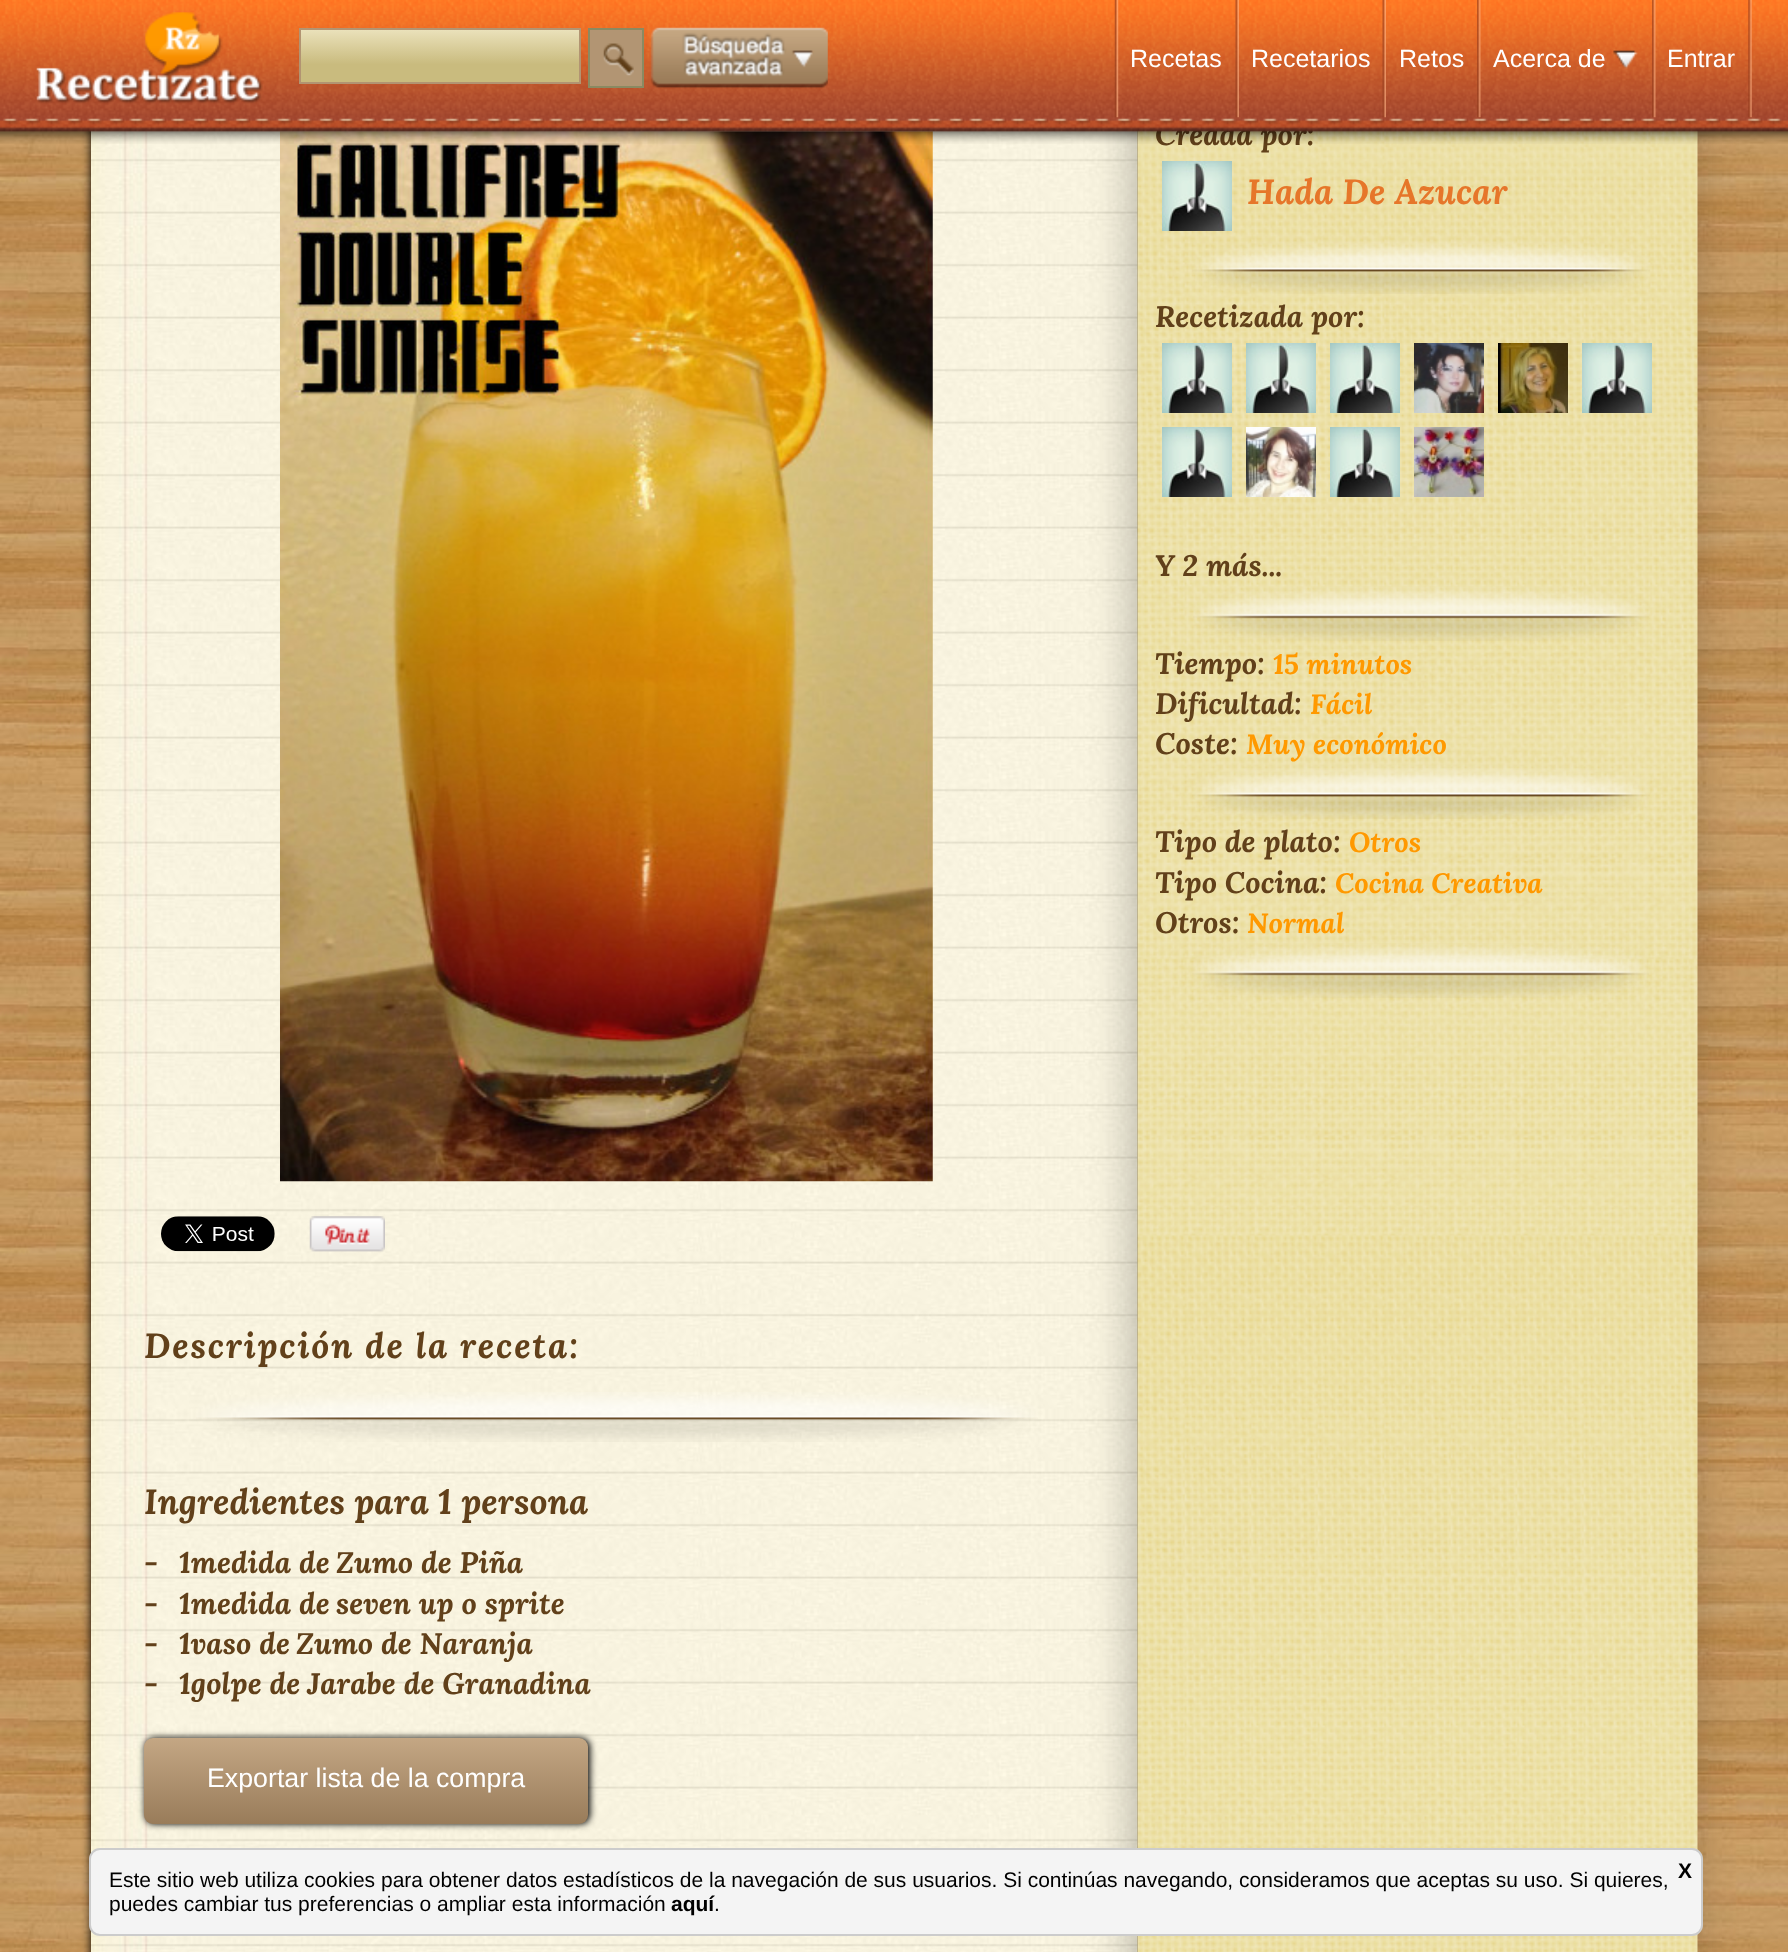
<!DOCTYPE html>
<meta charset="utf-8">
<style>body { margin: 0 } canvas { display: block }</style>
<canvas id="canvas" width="1788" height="1952"></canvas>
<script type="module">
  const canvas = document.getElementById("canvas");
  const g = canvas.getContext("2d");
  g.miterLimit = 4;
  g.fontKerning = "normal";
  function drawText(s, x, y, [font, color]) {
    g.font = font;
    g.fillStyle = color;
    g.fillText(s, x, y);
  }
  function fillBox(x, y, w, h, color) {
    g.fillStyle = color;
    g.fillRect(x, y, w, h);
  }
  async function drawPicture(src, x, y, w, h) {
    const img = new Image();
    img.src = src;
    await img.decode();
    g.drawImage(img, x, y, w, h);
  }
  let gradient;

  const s1 = ["italic bold 29.75px Lora", "#61401A"];
  const s2 = ["25px Liberation Sans", "#FFFFFF"];
  const s3 = ["italic bold 35px Lora", "#E6762A"];
  const s4 = ["italic bold 28px Lora", "#FF9900"];
  const s5 = ["italic bold 35px Lora", "#61401A"];
  const s6 = ["26.75px Liberation Sans", "#FFFFFF"];
  const s7 = ["21px Liberation Sans", "#000000"];
  const s8 = ["bold 21px Liberation Sans", "#000000"];

  fillBox(0, 0, 1788, 1952, "#FFFFFF");
  await drawPicture("pic1.png", 0, 130, 1788, 1822);
  g.fillStyle = "#000000";
  g.filter = "blur(5px)";
  g.beginPath();
  g.rect(91, -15, 1047, 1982);
  g.fill();
  g.filter = "none";
  await drawPicture("pic23.png", 91, 130, 1047, 1822);
  g.fillStyle = "rgba(50, 50, 50, 0.32)";
  g.filter = "blur(22px)";
  g.beginPath();
  g.rect(1131, -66, 560, 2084);
  g.fill();
  g.filter = "none";
  await drawPicture("pic13.png", 1137, 130, 561, 1822);
  drawText("Creada por:", 1155, 145, s1);
  await drawPicture("pic24.png", 280, 131, 653, 1051);
  await drawPicture("pic2.png", 0, 0, 1788, 144);
  await drawPicture("pic3.png", 36, 12, 227, 92);
  gradient = g.createLinearGradient(301, 82, 301, 30);
  gradient.addColorStop(0.34, "#C9BB7E");
  gradient.addColorStop(1, "#EAE1BA");
  g.fillStyle = gradient;
  g.fillRect(301, 30, 278, 52);
  g.strokeStyle = "#B29472";
  g.lineWidth = 2;
  g.strokeRect(300, 29, 280, 54);
  g.fillStyle = "#B29573";
  g.beginPath();
  g.rect(589, 29, 54, 58);
  g.fill();
  g.strokeStyle = "#8A8A62";
  g.stroke();
  await drawPicture("pic4.png", 603, 43, 31, 33);
  await drawPicture("pic5.png", 650, 27, 178, 62);
  await drawPicture("pic6.png", 1114, 0, 5, 118);
  drawText("Recetas", 1130, 67, s2);
  await drawPicture("pic7.png", 1235, 0, 4, 118);
  drawText("Recetarios", 1251, 67, s2);
  await drawPicture("pic8.png", 1382, 0, 4, 118);
  drawText("Retos", 1399, 67, s2);
  await drawPicture("pic9.png", 1477, 0, 4, 118);
  drawText("Acerca de", 1493, 67, s2);
  await drawPicture("pic10.png", 1613, 50, 25, 19);
  await drawPicture("pic11.png", 1652, 0, 4, 118);
  drawText("Entrar", 1667, 67, s2);
  await drawPicture("pic12.png", 1748, 0, 4, 118);
  await drawPicture("pic14.png", 1162, 161, 70, 70);
  drawText("Hada De Azucar", 1247, 204, s3);
  await drawPicture("pic15.png", 1192, 240, 458, 54);
  drawText("Recetizada por:", 1155, 327, s1);
  await drawPicture("pic14.png", 1162, 343, 70, 70);
  await drawPicture("pic14.png", 1246, 343, 70, 70);
  await drawPicture("pic14.png", 1330, 343, 70, 70);
  await drawPicture("pic16.png", 1414, 343, 70, 70);
  await drawPicture("pic17.png", 1498, 343, 70, 70);
  await drawPicture("pic14.png", 1582, 343, 70, 70);
  await drawPicture("pic14.png", 1162, 427, 70, 70);
  await drawPicture("pic18.png", 1246, 427, 70, 70);
  await drawPicture("pic14.png", 1330, 427, 70, 70);
  await drawPicture("pic19.png", 1414, 427, 70, 70);
  drawText("Y 2 más...", 1155, 576, s1);
  await drawPicture("pic20.png", 1193, 587, 456, 54);
  drawText("Tiempo:", 1155, 674, s1);
  drawText("15 minutos", 1273, 674, s4);
  drawText("Dificultad:", 1155, 714, s1);
  drawText("Fácil", 1310, 714, s4);
  drawText("Coste:", 1155, 754, s1);
  drawText("Muy económico", 1246, 754, s4);
  await drawPicture("pic21.png", 1192, 765, 458, 54);
  drawText("Tipo de plato:", 1155, 852, s1);
  drawText("Otros", 1349, 852, s4);
  drawText("Tipo Cocina:", 1155, 893, s1);
  drawText("Cocina Creativa", 1335, 893, s4);
  drawText("Otros:", 1155, 933, s1);
  drawText("Normal", 1247, 933, s4);
  await drawPicture("pic22.png", 1192, 944, 457, 54);
  await drawPicture("pic25.png", 161, 1216, 114, 36);
  await drawPicture("pic26.png", 309, 1216, 76, 36);
  g.letterSpacing = "1.75px";
  drawText("Descripción de la receta:", 144, 1358, s5);
  await drawPicture("pic27.png", 196, 1392, 842, 50);
  g.letterSpacing = "0px";
  drawText("Ingredientes para 1 persona", 144, 1514, s5);
  drawText("-", 144, 1573, s1);
  drawText("1medida de", 179, 1573, s1);
  drawText("Zumo de Piña", 336, 1573, s1);
  drawText("-", 144, 1614, s1);
  drawText("1medida de", 179, 1614, s1);
  drawText("seven up o sprite", 336, 1614, s1);
  drawText("-", 144, 1654, s1);
  drawText("1vaso de", 179, 1654, s1);
  drawText("Zumo de Naranja", 296, 1654, s1);
  drawText("-", 144, 1694, s1);
  drawText("1golpe de", 179, 1694, s1);
  drawText("Jarabe de Granadina", 307, 1694, s1);
  g.fillStyle = "#000000";
  g.filter = "blur(3.5px)";
  g.beginPath();
  g.roundRect(145, 1738, 445, 86, 9);
  g.fill();
  g.filter = "none";
  gradient = g.createLinearGradient(366, 1738, 366, 1824);
  gradient.addColorStop(0, "#C4A784");
  gradient.addColorStop(1, "#997C5A");
  g.fillStyle = gradient;
  g.beginPath();
  g.roundRect(144, 1738, 444, 86, 9);
  g.fill();
  drawText("Exportar lista de la compra", 207, 1787, s6);
  g.fillStyle = "#F4F4F4";
  g.beginPath();
  g.roundRect(90, 1849, 1612, 86, 10);
  g.fill();
  g.strokeStyle = "#CCCCCC";
  g.stroke();
  drawText("Este sitio web utiliza cookies para obtener datos estadísticos de la navegación de sus usuarios. Si continúas navegando, consideramos que aceptas su uso. Si quieres,", 109, 1887, s7);
  drawText("X", 1678, 1878, s8);
  drawText("puedes cambiar tus preferencias o ampliar esta información", 109, 1911, s7);
  drawText("aquí", 671, 1911, s8);
  drawText(".", 714, 1911, s7);
</script>
